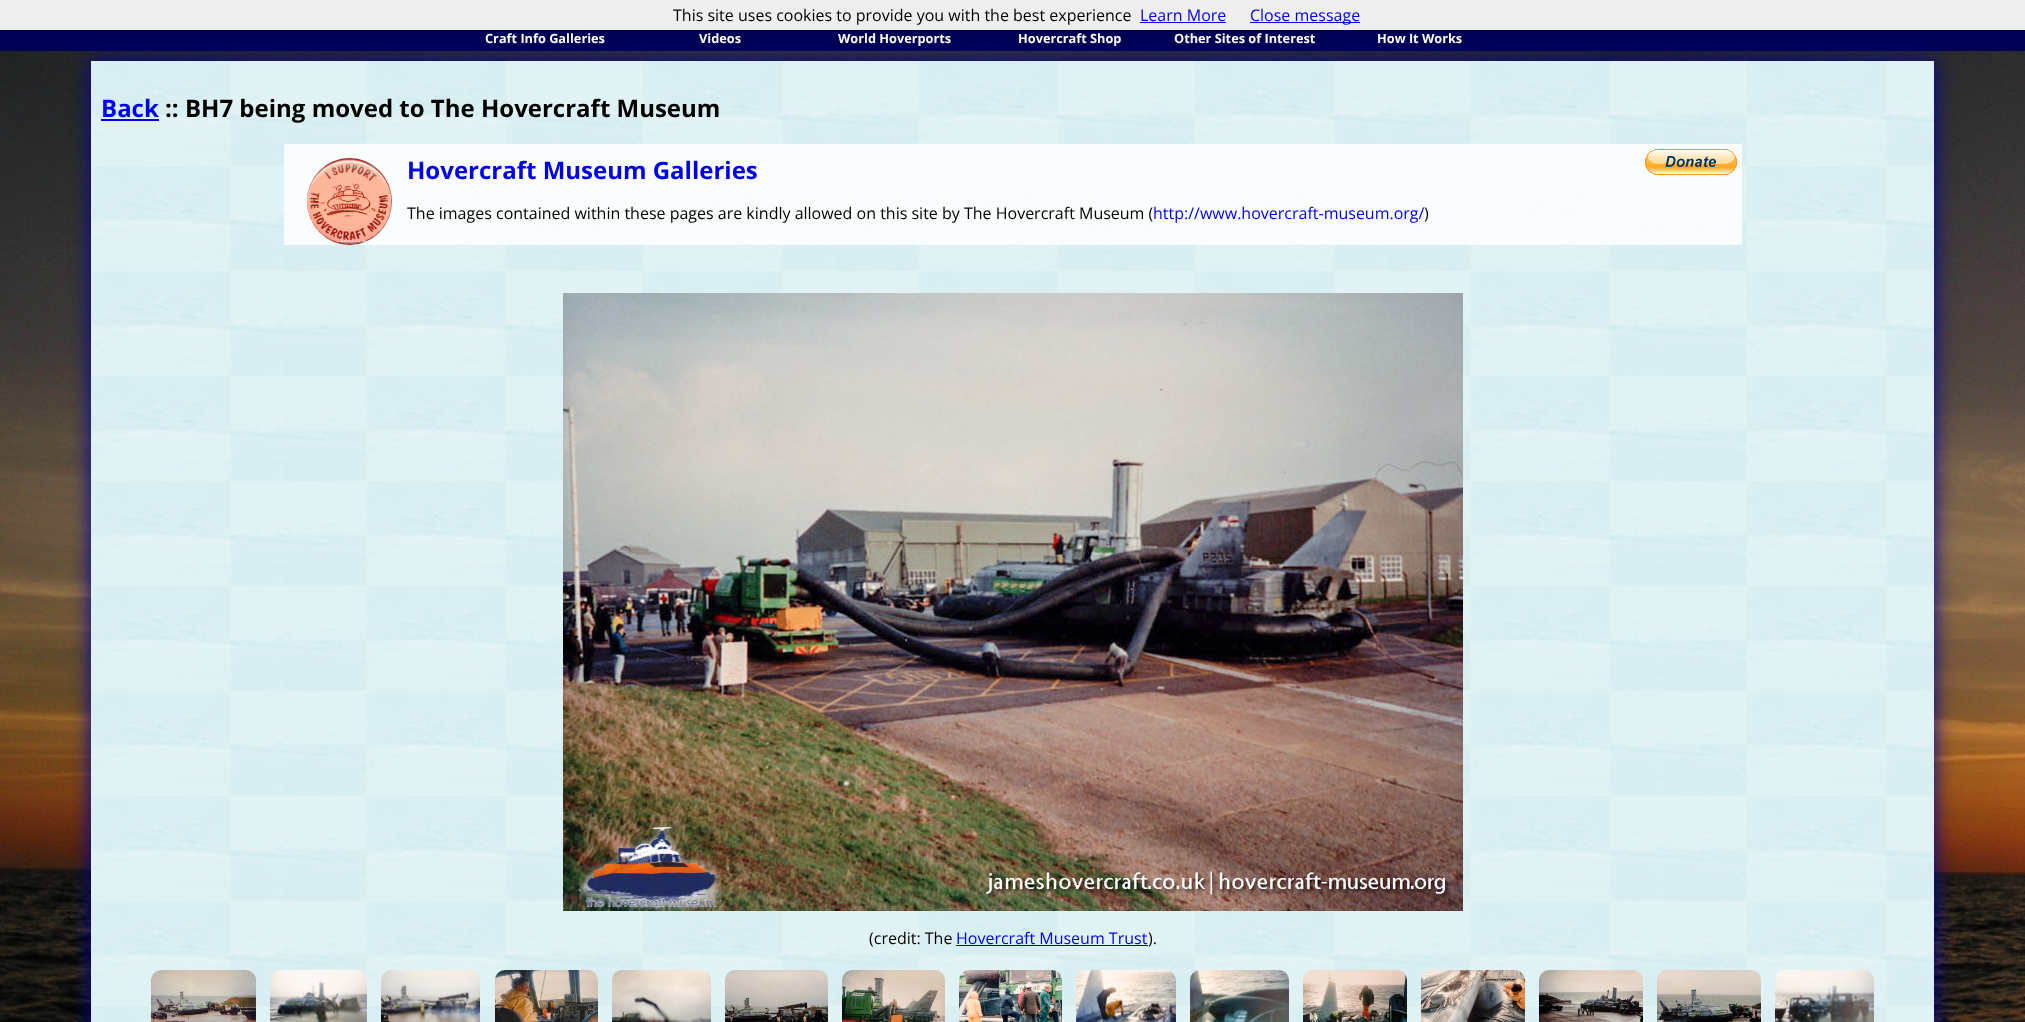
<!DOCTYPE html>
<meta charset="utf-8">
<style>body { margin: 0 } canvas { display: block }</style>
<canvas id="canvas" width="2025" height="1022"></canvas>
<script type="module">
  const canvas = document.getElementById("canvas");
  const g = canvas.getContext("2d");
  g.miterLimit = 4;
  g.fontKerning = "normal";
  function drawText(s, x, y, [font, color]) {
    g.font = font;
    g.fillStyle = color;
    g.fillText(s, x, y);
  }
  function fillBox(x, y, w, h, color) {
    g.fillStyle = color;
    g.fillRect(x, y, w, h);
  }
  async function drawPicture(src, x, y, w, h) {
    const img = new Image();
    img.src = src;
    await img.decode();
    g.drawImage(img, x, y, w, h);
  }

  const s1 = ["16px Open Sans", "#000000"];
  const s2 = ["16px Open Sans", "#0000EE"];
  const s3 = ["bold 12.75px Open Sans", "#FFFFFF"];
  const s4 = ["bold 24px Open Sans", "#0000EE"];
  const s5 = ["bold 24px Open Sans", "#000000"];

  fillBox(0, 0, 2025, 1022, "#FFFFFF");
  await drawPicture("pic1.png", 0, 51, 2025, 971);
  fillBox(0, 0, 2025, 30, "#EEEEEE");
  drawText("This site uses cookies to provide you with the best experience", 673, 21, s1);
  drawText("Learn More", 1140, 21, s2);
  fillBox(1140, 22, 86, 1, "#0000EE");
  fillBox(1250, 22, 110, 1, "#0000EE");
  drawText("Close message", 1250, 21, s2);
  fillBox(0, 30, 2025, 21, "#000055");
  drawText("Craft Info Galleries", 485, 43, s3);
  drawText("Videos", 699, 43, s3);
  drawText("World Hoverports", 838, 43, s3);
  drawText("Hovercraft Shop", 1018, 43, s3);
  drawText("Other Sites of Interest", 1174, 43, s3);
  drawText("How It Works", 1377, 43, s3);
  g.fillStyle = "#000099";
  g.filter = "blur(10px)";
  g.beginPath();
  g.rect(91, 61, 1843, 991);
  g.fill();
  g.filter = "none";
  await drawPicture("pic2.png", 91, 61, 1843, 961);
  drawText("Back", 101, 117, s4);
  fillBox(101, 119, 58, 2, "#0000EE");
  drawText(":: BH7 being moved to The Hovercraft Museum", 165, 117, s5);
  fillBox(284, 144, 1458, 101, "rgba(255, 255, 255, 0.8)");
  await drawPicture("pic3.png", 307, 158, 85, 87);
  drawText("Hovercraft Museum Galleries", 407, 179, s4);
  await drawPicture("pic4.png", 1645, 149, 92, 26);
  drawText("The images contained within these pages are kindly allowed on this site by The Hovercraft Museum (", 407, 219, s1);
  drawText("http://www.hovercraft-museum.org/", 1153, 219, s2);
  drawText(")", 1424, 219, s1);
  await drawPicture("pic5.png", 563, 293, 900, 618);
  drawText("(credit: The", 869, 944, s1);
  drawText("Hovercraft Museum Trust", 956, 944, s2);
  fillBox(956, 945, 192, 1, "#0000EE");
  drawText(").", 1148, 944, s1);
  await drawPicture("pic6.png", 151, 970, 105, 52);
  await drawPicture("pic7.png", 270, 970, 97, 52);
  await drawPicture("pic8.png", 381, 970, 99, 52);
  await drawPicture("pic9.png", 495, 970, 103, 52);
  await drawPicture("pic10.png", 612, 970, 99, 52);
  await drawPicture("pic11.png", 725, 970, 103, 52);
  await drawPicture("pic12.png", 842, 970, 103, 52);
  await drawPicture("pic13.png", 959, 970, 103, 52);
  await drawPicture("pic14.png", 1076, 970, 100, 52);
  await drawPicture("pic15.png", 1190, 970, 99, 52);
  await drawPicture("pic16.png", 1303, 970, 104, 52);
  await drawPicture("pic17.png", 1421, 970, 104, 52);
  await drawPicture("pic18.png", 1539, 970, 104, 52);
  await drawPicture("pic19.png", 1657, 970, 104, 52);
  await drawPicture("pic20.png", 1775, 970, 99, 52);
</script>
